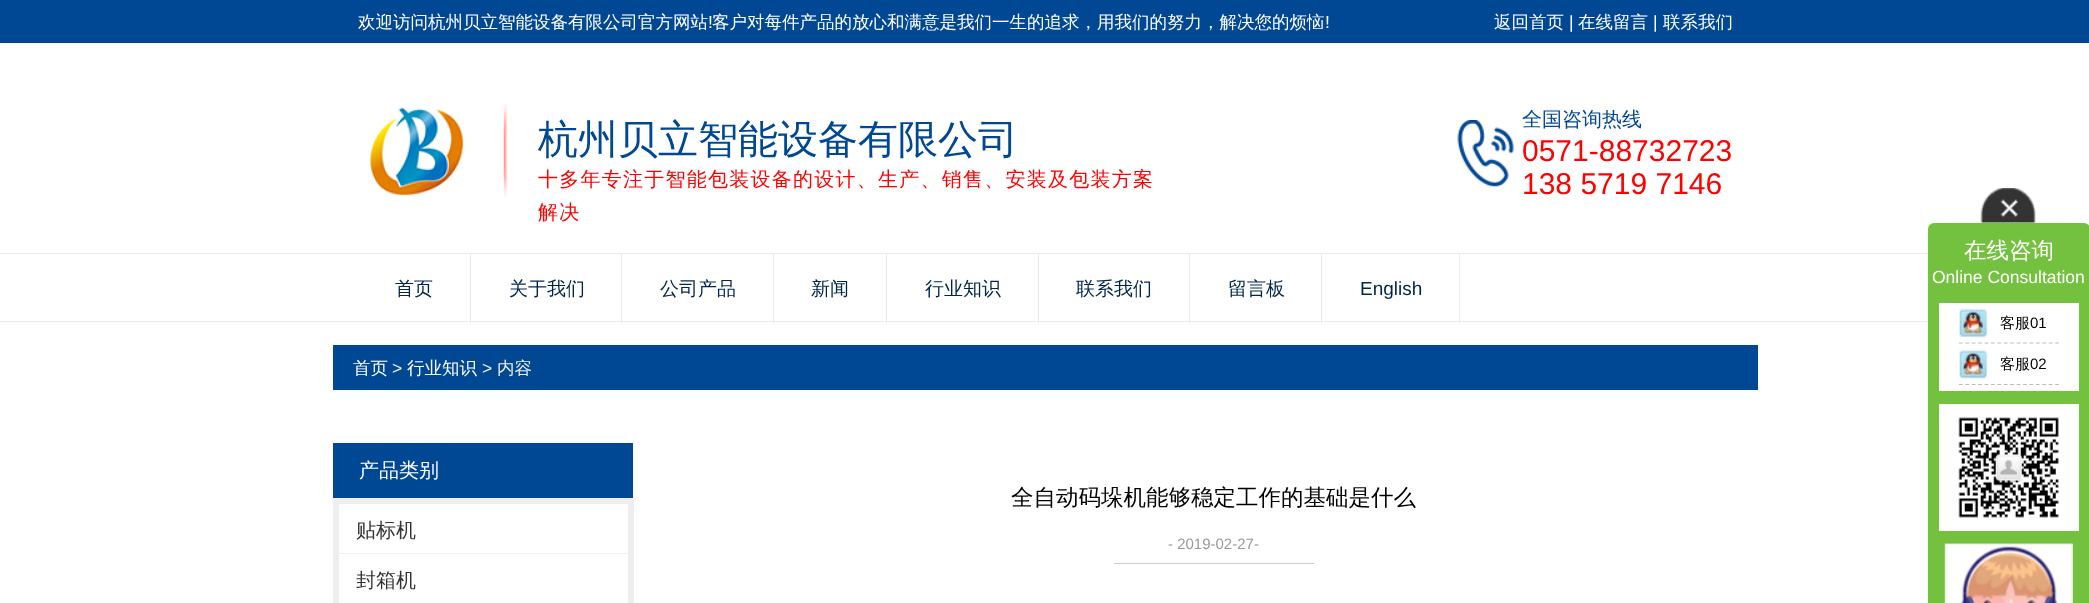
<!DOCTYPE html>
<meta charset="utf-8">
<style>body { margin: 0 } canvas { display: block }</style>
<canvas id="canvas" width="2089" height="603"></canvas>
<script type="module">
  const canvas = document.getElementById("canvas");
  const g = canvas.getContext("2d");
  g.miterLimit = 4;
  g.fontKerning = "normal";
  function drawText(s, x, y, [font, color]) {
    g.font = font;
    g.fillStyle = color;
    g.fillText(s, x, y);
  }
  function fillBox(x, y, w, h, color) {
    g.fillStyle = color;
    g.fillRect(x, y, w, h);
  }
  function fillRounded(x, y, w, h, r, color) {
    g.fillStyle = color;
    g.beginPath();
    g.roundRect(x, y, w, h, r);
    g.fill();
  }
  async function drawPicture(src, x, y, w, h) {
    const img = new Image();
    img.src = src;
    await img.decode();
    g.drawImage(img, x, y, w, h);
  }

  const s1 = ["500 17.5px WenQuanYi Zen Hei", "#FFFFFF"];
  const s2 = ["17.5px Liberation Sans", "#FFFFFF"];
  const s3 = ["500 40px WenQuanYi Zen Hei", "#004893"];
  const s4 = ["500 20px WenQuanYi Zen Hei", "#FF0000"];
  const s5 = ["500 20px WenQuanYi Zen Hei", "#004893"];
  const s6 = ["30px Liberation Sans", "#FF0000"];
  const s7 = ["500 19px WenQuanYi Zen Hei", "#00254C"];
  const s8 = ["19px Liberation Sans", "#00254C"];
  const s9 = ["500 22.5px WenQuanYi Zen Hei", "#FFFFFF"];
  const s10 = ["500 15px WenQuanYi Zen Hei", "#000000"];
  const s11 = ["15px Liberation Sans", "#000000"];
  const s12 = ["17.5px Liberation Sans", "#EEEEEE"];
  const s13 = ["500 17.5px WenQuanYi Zen Hei", "#EEEEEE"];
  const s14 = ["500 20px WenQuanYi Zen Hei", "#FFFFFF"];
  const s15 = ["500 20px WenQuanYi Zen Hei", "#333333"];
  const s16 = ["500 22.5px WenQuanYi Zen Hei", "#000000"];
  const s17 = ["15px Liberation Sans", "#999999"];

  fillBox(0, 0, 2089, 603, "#FFFFFF");
  fillBox(0, 0, 2089, 43, "#004893");
  drawText("欢迎访问杭州贝立智能设备有限公司官方网站", 358, 28, s1);
  drawText("!", 708, 28, s2);
  drawText("客户对每件产品的放心和满意是我们一生的追求，用我们的努力，解决您的烦恼", 712, 28, s1);
  drawText("!", 1325, 28, s2);
  drawText("返回首页", 1494, 28, s1);
  drawText("|", 1569, 28, s2);
  drawText("在线留言", 1578, 28, s1);
  drawText("|", 1653, 28, s2);
  drawText("联系我们", 1663, 28, s1);
  await drawPicture("pic1.png", 369, 107, 95, 89);
  await drawPicture("pic2.png", 503, 103, 5, 94);
  drawText("杭州贝立智能设备有限公司", 538, 153, s3);
  g.letterSpacing = "1.25px";
  drawText("十多年专注于智能包装设备的设计、生产、销售、安装及包装方案", 538, 186, s4);
  drawText("解决", 538, 219, s4);
  await drawPicture("pic3.png", 1457, 120, 57, 67);
  g.letterSpacing = "0px";
  drawText("全国咨询热线", 1522, 126, s5);
  drawText("0571-88732723", 1522, 161, s6);
  drawText("138 5719 7146", 1522, 194, s6);
  fillBox(0, 253, 1928, 1, "#EBEBEB");
  fillBox(0, 321, 1928, 1, "#EBEBEB");
  fillBox(470, 254, 1, 70, "#EBEBEB");
  drawText("首页", 395, 295, s7);
  fillBox(621, 254, 1, 70, "#EBEBEB");
  drawText("关于我们", 509, 295, s7);
  fillBox(773, 254, 1, 70, "#EBEBEB");
  drawText("公司产品", 660, 295, s7);
  fillBox(886, 254, 1, 70, "#EBEBEB");
  drawText("新闻", 811, 295, s7);
  fillBox(1038, 254, 1, 70, "#EBEBEB");
  drawText("行业知识", 925, 295, s7);
  fillBox(1189, 254, 1, 70, "#EBEBEB");
  drawText("联系我们", 1076, 295, s7);
  fillBox(1321, 254, 1, 70, "#EBEBEB");
  drawText("留言板", 1228, 295, s7);
  fillBox(1459, 254, 1, 70, "#EBEBEB");
  drawText("English", 1360, 295, s8);
  await drawPicture("pic4.png", 1980, 188, 56, 35);
  fillRounded(1928, 223, 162, 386, 6, "#74C13F");
  drawText("在线咨询", 1964, 258, s9);
  drawText("Online Consultation", 1932, 283, s2);
  fillBox(1939, 303, 140, 88, "#FFFFFF");
  g.beginPath();
  g.moveTo(1959, 343);
  g.lineTo(2059, 343);
  g.strokeStyle = "#BBBBBB";
  g.lineWidth = 1.2;
  g.setLineDash([3.75, 2.66]);
  g.stroke();
  await drawPicture("pic5.png", 1959, 308, 29, 30);
  drawText("客服", 2000, 328, s10);
  drawText("01", 2030, 328, s11);
  g.beginPath();
  g.moveTo(1959, 384.5);
  g.lineTo(2059, 384.5);
  g.stroke();
  await drawPicture("pic6.png", 1959, 349, 29, 31);
  drawText("客服", 2000, 369, s10);
  drawText("02", 2030, 369, s11);
  fillBox(1939, 404, 140, 127, "#FFFFFF");
  await drawPicture("pic7.png", 1958, 417, 101, 101);
  await drawPicture("pic8.png", 1944, 543, 129, 60);
  fillBox(333, 345, 1425, 45, "#004893");
  drawText("首页", 353, 374, s1);
  drawText(">", 392, 374, s12);
  drawText("行业知识", 407, 374, s1);
  drawText(">", 482, 374, s12);
  drawText("内容", 497, 374, s13);
  fillBox(333, 443, 300, 55, "#004893");
  drawText("产品类别", 359, 477, s14);
  g.strokeStyle = "#EEEEEE";
  g.lineWidth = 6;
  g.setLineDash([]);
  g.strokeRect(336, 501, 295, 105);
  fillBox(339, 553, 289, 1, "#EEEEEE");
  drawText("贴标机", 356, 537, s15);
  drawText("封箱机", 356, 587, s15);
  drawText("全自动码垛机能够稳定工作的基础是什么", 1011, 505, s16);
  fillBox(1114, 563, 200, 1, "#CCCCCC");
  drawText("- 2019-02-27-", 1168, 549, s17);
</script>
